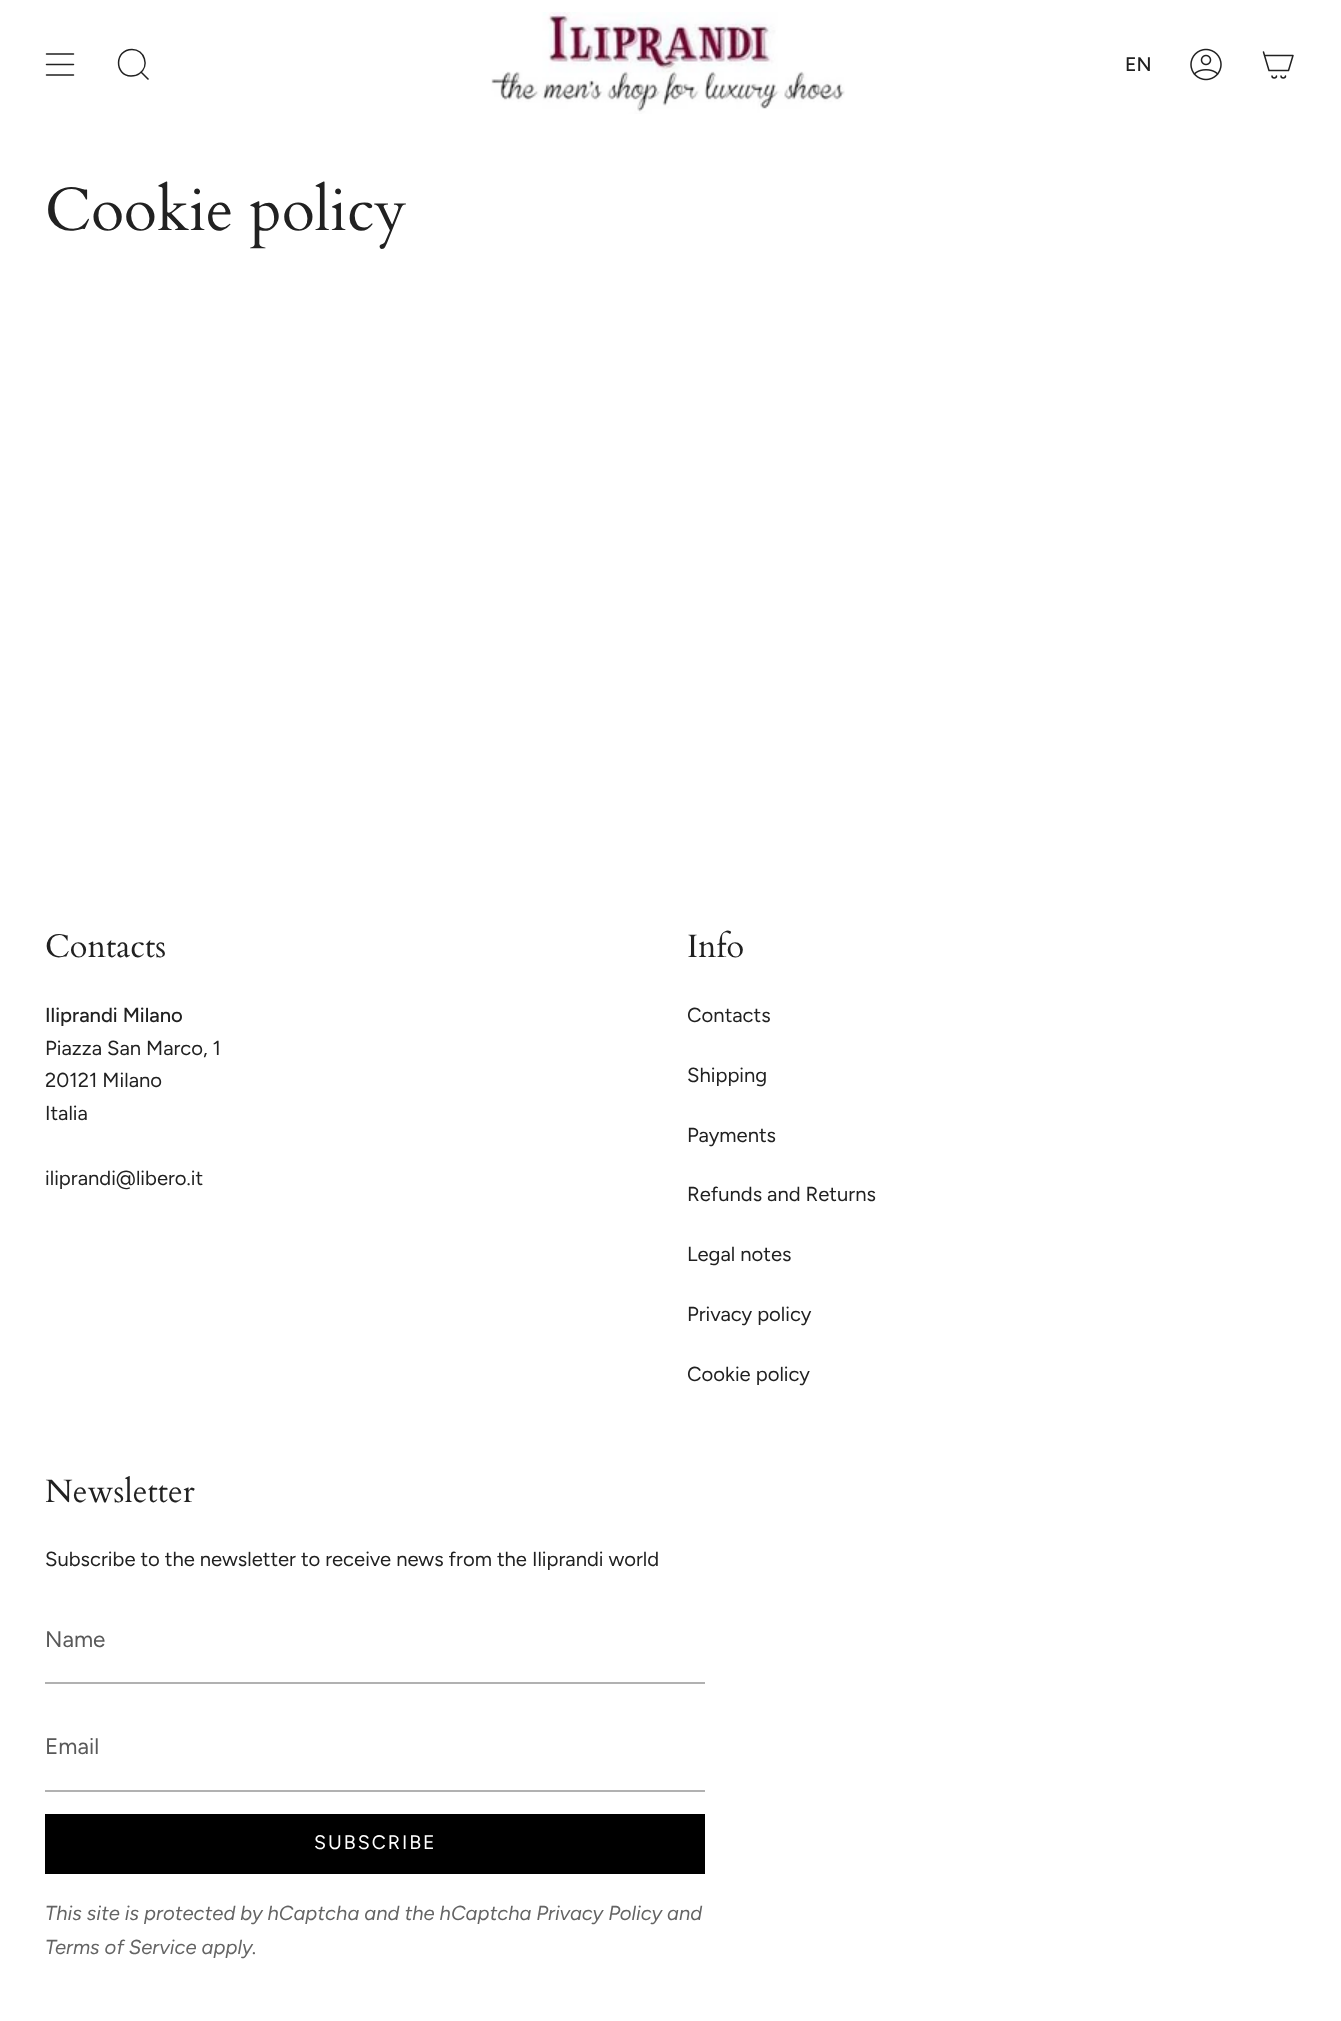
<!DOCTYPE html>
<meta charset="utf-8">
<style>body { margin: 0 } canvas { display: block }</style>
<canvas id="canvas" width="1341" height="2021"></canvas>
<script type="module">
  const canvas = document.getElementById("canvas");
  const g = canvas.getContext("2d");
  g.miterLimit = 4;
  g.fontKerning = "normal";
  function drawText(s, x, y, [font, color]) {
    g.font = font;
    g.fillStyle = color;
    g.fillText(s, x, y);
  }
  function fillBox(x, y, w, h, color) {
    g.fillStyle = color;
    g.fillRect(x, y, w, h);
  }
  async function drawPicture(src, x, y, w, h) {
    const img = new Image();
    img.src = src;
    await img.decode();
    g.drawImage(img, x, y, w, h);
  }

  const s1 = ["500 19.5px Figtree", "#212121"];
  const s2 = ["60.5px Cardo", "#212121"];
  const s3 = ["32.5px Cardo", "#212121"];
  const s4 = ["500 20.25px Figtree", "#212121"];
  const s5 = ["20.25px Figtree", "#212121"];
  const s6 = ["22.5px Figtree", "#595959"];
  const s7 = ["19.5px Figtree", "#FFFFFF"];
  const s8 = ["italic 20.25px Figtree", "#646464"];

  fillBox(0, 0, 1341, 2021, "#FFFFFF");
  g.beginPath();
  g.moveTo(46.5, 54);
  g.lineTo(73.5, 54);
  g.moveTo(46.5, 64.5);
  g.lineTo(73.5, 64.5);
  g.moveTo(46.5, 75);
  g.lineTo(73.5, 75);
  g.strokeStyle = "#212121";
  g.lineWidth = 1.5;
  g.lineCap = "round";
  g.lineJoin = "round";
  g.stroke();
  g.beginPath();
  g.moveTo(132, 49.5);
  g.bezierCurveTo(144.5, 49.5, 150, 66, 139.5, 73.5);
  g.bezierCurveTo(137, 75.5, 134, 76, 131, 76);
  g.bezierCurveTo(114, 75.5, 114.5, 49.5, 132, 49.5);
  g.closePath();
  g.moveTo(141, 72);
  g.lineTo(148.5, 79.5);
  g.lineCap = "butt";
  g.lineJoin = "miter";
  g.stroke();
  await drawPicture("pic1.png", 491, 12, 354, 102);
  drawText("EN", 1125, 71, s1);
  await drawPicture("pic2.png", 1190, 48, 32, 33);
  g.beginPath();
  g.moveTo(1264.5, 55.5);
  g.lineTo(1293, 55.5);
  g.lineTo(1288.5, 70.5);
  g.lineTo(1269, 70.5);
  g.closePath();
  g.moveTo(1264.5, 55.5);
  g.lineTo(1263.5, 52);
  g.moveTo(1276.5, 76);
  g.bezierCurveTo(1276.5, 78.5, 1272, 78.5, 1272, 76);
  g.moveTo(1285.5, 76);
  g.bezierCurveTo(1285.5, 78.5, 1281, 78.5, 1281, 76);
  g.lineCap = "round";
  g.lineJoin = "round";
  g.stroke();
  drawText("Cookie policy", 45, 230, s2);
  drawText("Contacts", 45, 957, s3);
  drawText("Iliprandi Milano", 45, 1022, s4);
  drawText("Piazza San Marco, 1", 45, 1055, s5);
  drawText("20121 Milano", 45, 1087, s5);
  drawText("Italia", 45, 1120, s5);
  drawText("iliprandi@libero.it", 45, 1185, s5);
  drawText("Info", 687, 957, s3);
  drawText("Contacts", 687, 1022, s5);
  drawText("Shipping", 687, 1082, s5);
  drawText("Payments", 687, 1142, s5);
  drawText("Refunds and Returns", 687, 1201, s5);
  drawText("Legal notes", 687, 1261, s5);
  drawText("Privacy policy", 687, 1321, s5);
  drawText("Cookie policy", 687, 1381, s5);
  drawText("Newsletter", 45, 1502, s3);
  drawText("Subscribe to the newsletter to receive news from the Iliprandi world", 45, 1566, s5);
  fillBox(45, 1682, 660, 2, "#B1B1B1");
  drawText("Name", 45, 1647, s6);
  fillBox(45, 1790, 660, 2, "#B1B1B1");
  drawText("Email", 45, 1754, s6);
  fillBox(45, 1814, 660, 60, "#000000");
  g.letterSpacing = "2px";
  drawText("SUBSCRIBE", 314, 1849, s7);
  g.letterSpacing = "0px";
  drawText("This site is protected by hCaptcha and the hCaptcha Privacy Policy and", 45, 1920, s8);
  drawText("Terms of Service apply.", 45, 1954, s8);
</script>
